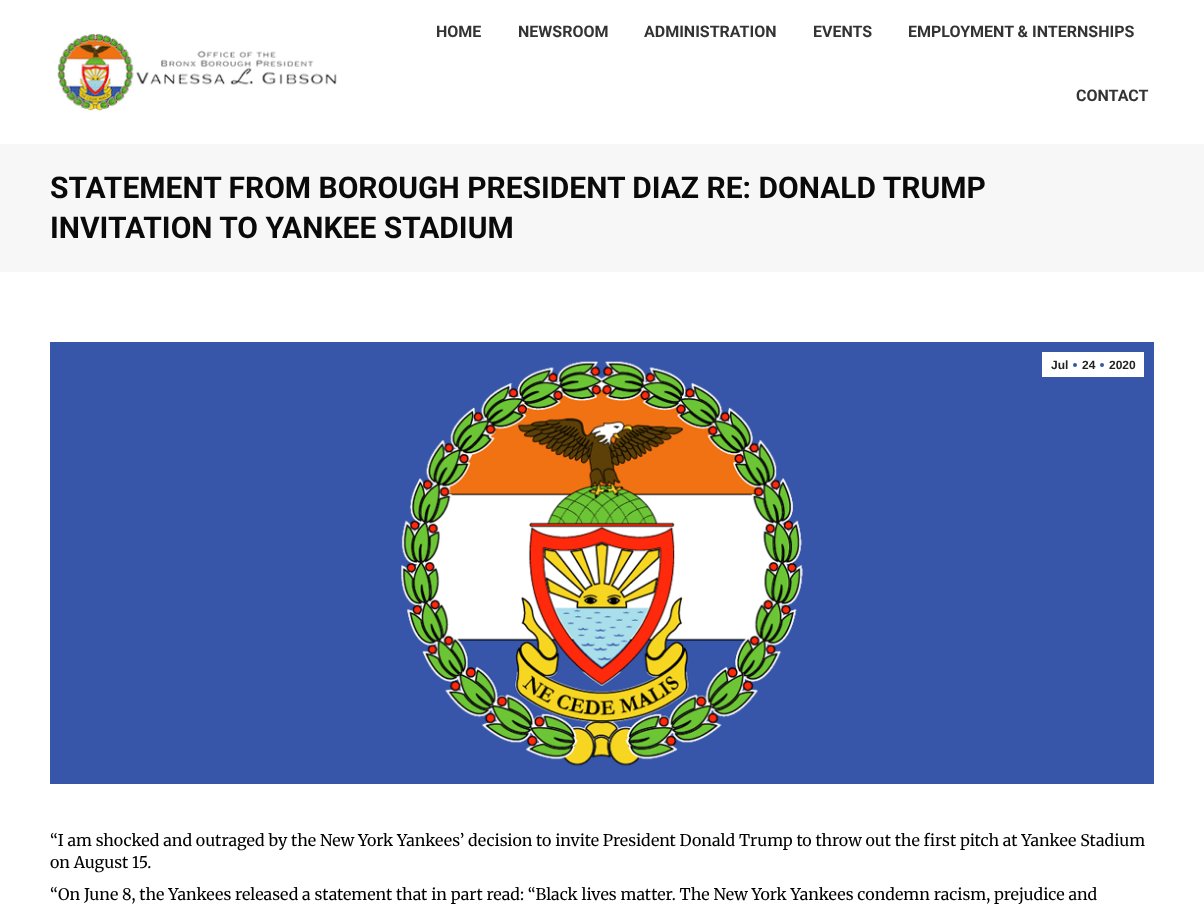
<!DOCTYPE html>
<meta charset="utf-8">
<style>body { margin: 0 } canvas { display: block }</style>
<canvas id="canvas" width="1204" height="904"></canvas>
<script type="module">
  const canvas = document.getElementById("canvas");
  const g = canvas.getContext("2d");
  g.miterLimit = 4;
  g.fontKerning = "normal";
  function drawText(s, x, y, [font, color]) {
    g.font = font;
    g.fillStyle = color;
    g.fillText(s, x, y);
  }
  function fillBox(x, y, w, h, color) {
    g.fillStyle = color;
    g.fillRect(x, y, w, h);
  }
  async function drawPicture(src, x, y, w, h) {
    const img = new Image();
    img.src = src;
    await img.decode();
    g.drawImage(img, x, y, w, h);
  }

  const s1 = ["bold 16px Roboto", "#333333"];
  const s2 = ["bold 30px Roboto", "#0A0A0A"];
  const s3 = ["bold 12px Liberation Sans", "#222222"];
  const s4 = ["16px Merriweather", "#000000"];

  fillBox(0, 0, 1204, 904, "#FFFFFF");
  await drawPicture("pic1.png", 57, 33, 280, 78);
  drawText("HOME", 436, 37, s1);
  drawText("NEWSROOM", 518, 37, s1);
  drawText("ADMINISTRATION", 644, 37, s1);
  drawText("EVENTS", 813, 37, s1);
  drawText("EMPLOYMENT & INTERNSHIPS", 908, 37, s1);
  drawText("CONTACT", 1076, 101, s1);
  fillBox(0, 144, 1204, 128, "#F7F7F7");
  drawText("STATEMENT FROM BOROUGH PRESIDENT DIAZ RE: DONALD TRUMP", 50, 198, s2);
  drawText("INVITATION TO YANKEE STADIUM", 50, 238, s2);
  await drawPicture("pic2.png", 50, 342, 1104, 442);
  fillBox(1042, 352, 102, 25, "#FFFFFF");
  drawText("Jul", 1051, 369, s3);
  g.fillStyle = "#3756A9";
  g.beginPath();
  g.arc(1075, 365, 2, 0, Math.PI * 2);
  g.fill();
  drawText("24", 1082, 369, s3);
  g.fillStyle = "#3756A9";
  g.beginPath();
  g.arc(1102, 365, 2, 0, Math.PI * 2);
  g.fill();
  drawText("2020", 1109, 369, s3);
  drawText("“I am shocked and outraged by the New York Yankees’ decision to invite President Donald Trump to throw out the first pitch at Yankee Stadium", 50, 846, s4);
  drawText("on August 15.", 50, 868, s4);
  drawText("“On June 8, the Yankees released a statement that in part read: “Black lives matter. The New York Yankees condemn racism, prejudice and", 50, 900, s4);
</script>
